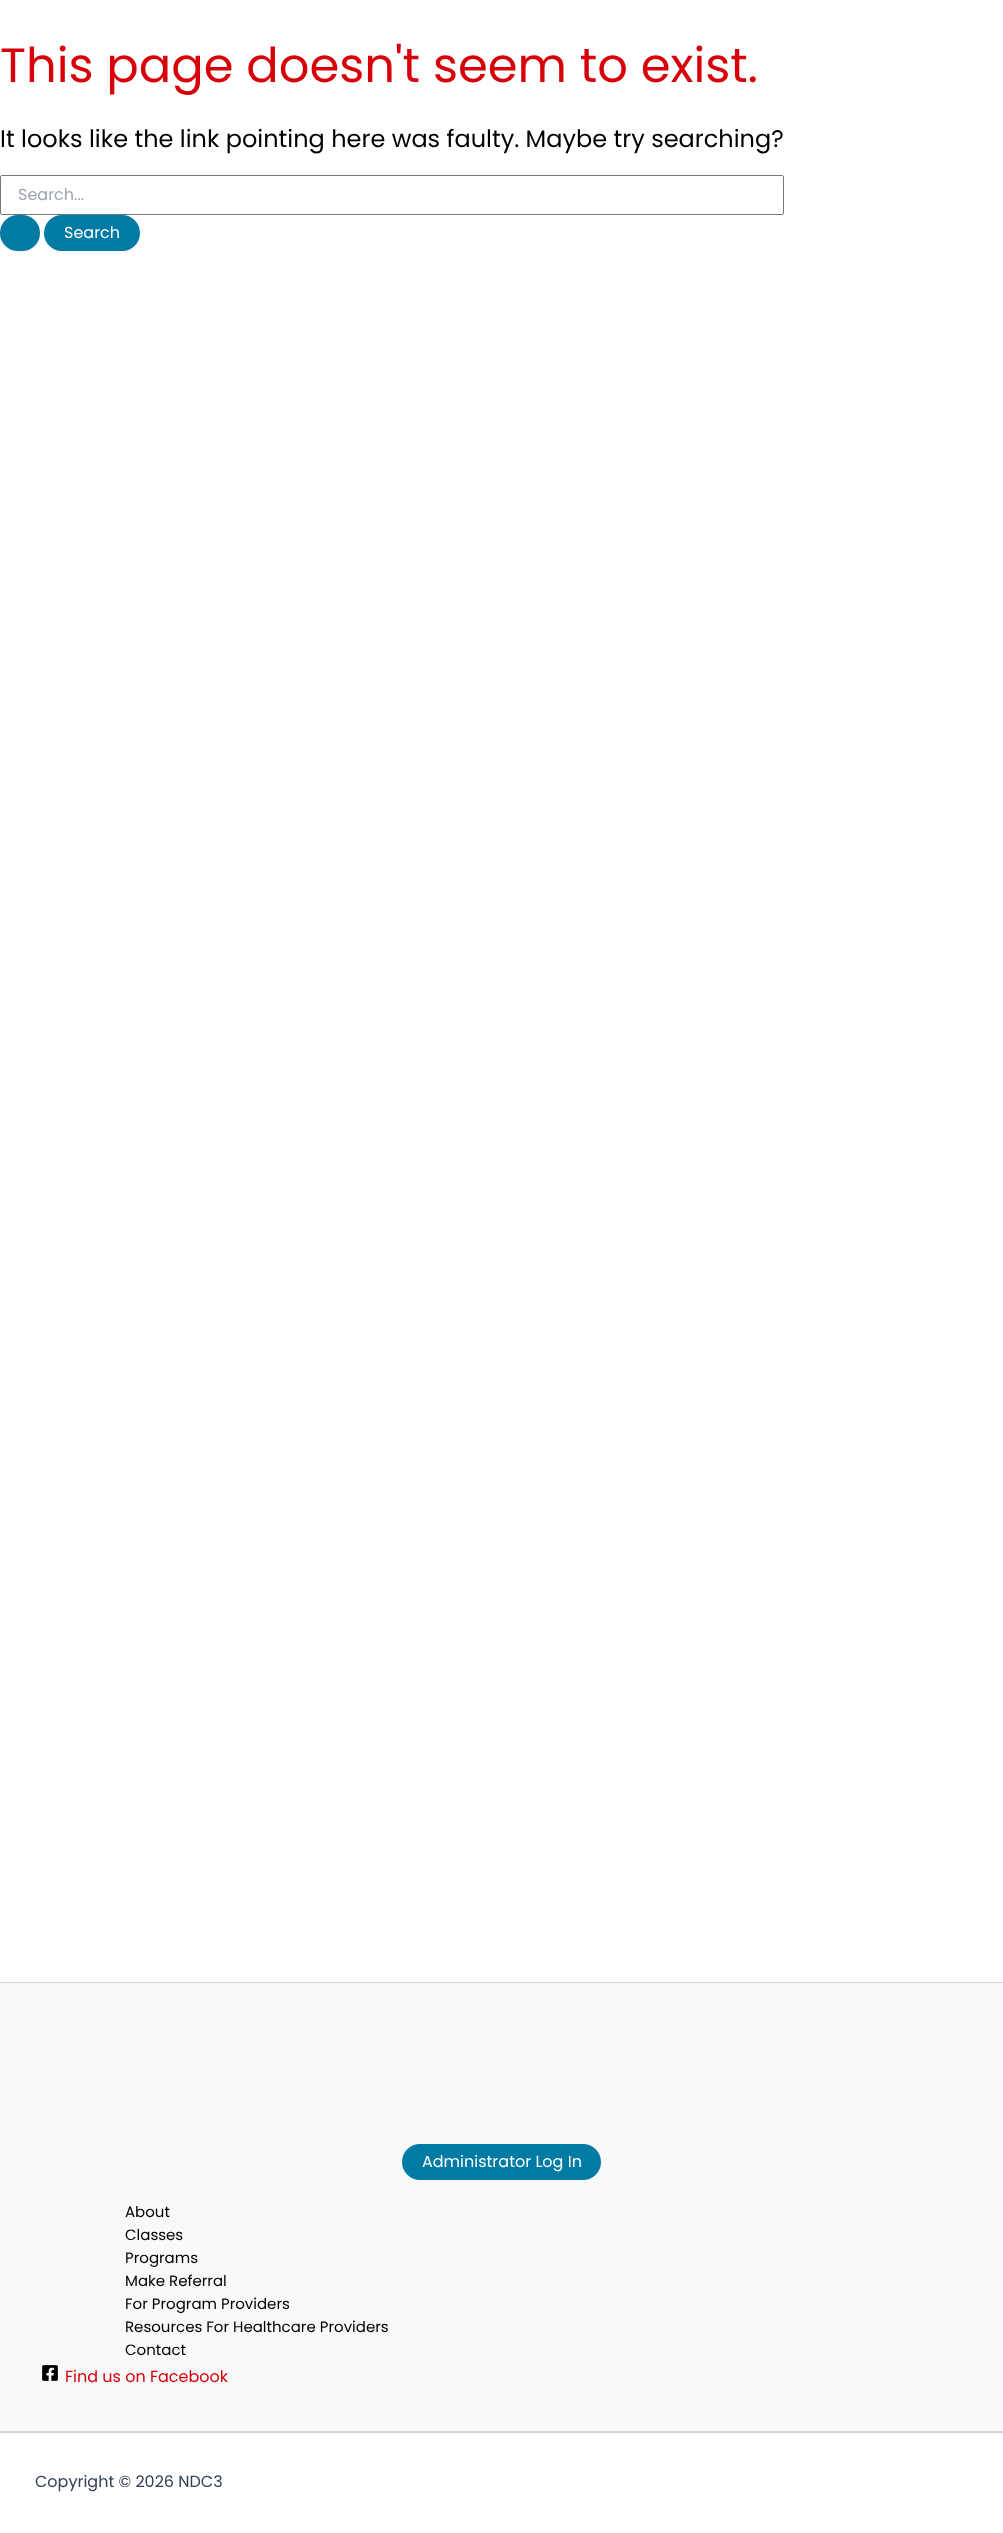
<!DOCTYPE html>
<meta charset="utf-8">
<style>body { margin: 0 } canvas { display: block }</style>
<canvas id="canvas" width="1003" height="2533"></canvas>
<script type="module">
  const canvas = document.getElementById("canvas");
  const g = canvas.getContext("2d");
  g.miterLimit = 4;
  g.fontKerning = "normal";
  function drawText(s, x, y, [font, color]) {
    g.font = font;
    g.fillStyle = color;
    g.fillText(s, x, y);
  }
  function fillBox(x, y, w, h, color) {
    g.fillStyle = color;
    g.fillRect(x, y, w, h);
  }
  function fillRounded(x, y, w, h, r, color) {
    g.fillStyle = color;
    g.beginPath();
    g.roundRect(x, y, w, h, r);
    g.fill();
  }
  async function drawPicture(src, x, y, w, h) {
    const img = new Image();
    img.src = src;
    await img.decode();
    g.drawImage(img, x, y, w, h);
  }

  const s1 = ["48px Poppins", "#D70009"];
  const s2 = ["24px Poppins", "#000000"];
  const s3 = ["16px Poppins", "#9CA3AF"];
  const s4 = ["16px Poppins", "#FFFFFF"];
  const s5 = ["15px Poppins", "#000000"];
  const s6 = ["16px Poppins", "#D70009"];
  const s7 = ["16px Poppins", "#334155"];

  fillBox(0, 0, 1003, 2533, "#FFFFFF");
  drawText("This page doesn't seem to exist.", 0, 82, s1);
  drawText("It looks like the link pointing here was faulty. Maybe try searching?", 0, 147, s2);
  g.beginPath();
  g.roundRect(0.5, 175.5, 783, 39, 1.5);
  g.strokeStyle = "#767676";
  g.stroke();
  drawText("Search...", 18, 200, s3);
  g.fillStyle = "rgba(0, 0, 0, 0.05)";
  g.filter = "blur(1px)";
  g.beginPath();
  g.roundRect(0, 216, 40, 36, 18);
  g.fill();
  g.filter = "none";
  fillRounded(0, 215, 40, 36, 18, "#017BA4");
  g.fillStyle = "rgba(0, 0, 0, 0.05)";
  g.filter = "blur(1px)";
  g.beginPath();
  g.roundRect(44, 216, 96, 36, 18);
  g.fill();
  g.filter = "none";
  fillRounded(44, 215, 96, 36, 18, "#017BA4");
  drawText("Search", 64, 238, s4);
  fillBox(0, 1983, 1003, 448, "#F9F9F9");
  fillBox(0, 1982, 1003, 1, "#D1D5DB");
  fillRounded(402, 2144, 199, 36, 18, "#017BA4");
  drawText("Administrator Log In", 422, 2167, s4);
  drawText("About", 125, 2217, s5);
  drawText("Classes", 125, 2240, s5);
  drawText("Programs", 125, 2263, s5);
  drawText("Make Referral", 125, 2286, s5);
  drawText("For Program Providers", 125, 2309, s5);
  drawText("Resources For Healthcare Providers", 125, 2332, s5);
  drawText("Contact", 125, 2355, s5);
  await drawPicture("pic1.png", 42, 2365, 16, 16);
  drawText("Find us on Facebook", 65, 2382, s6);
  fillBox(0, 2431, 1003, 2, "#D1D5DB");
  drawText("Copyright © 2026 NDC3", 35, 2487, s7);
</script>
